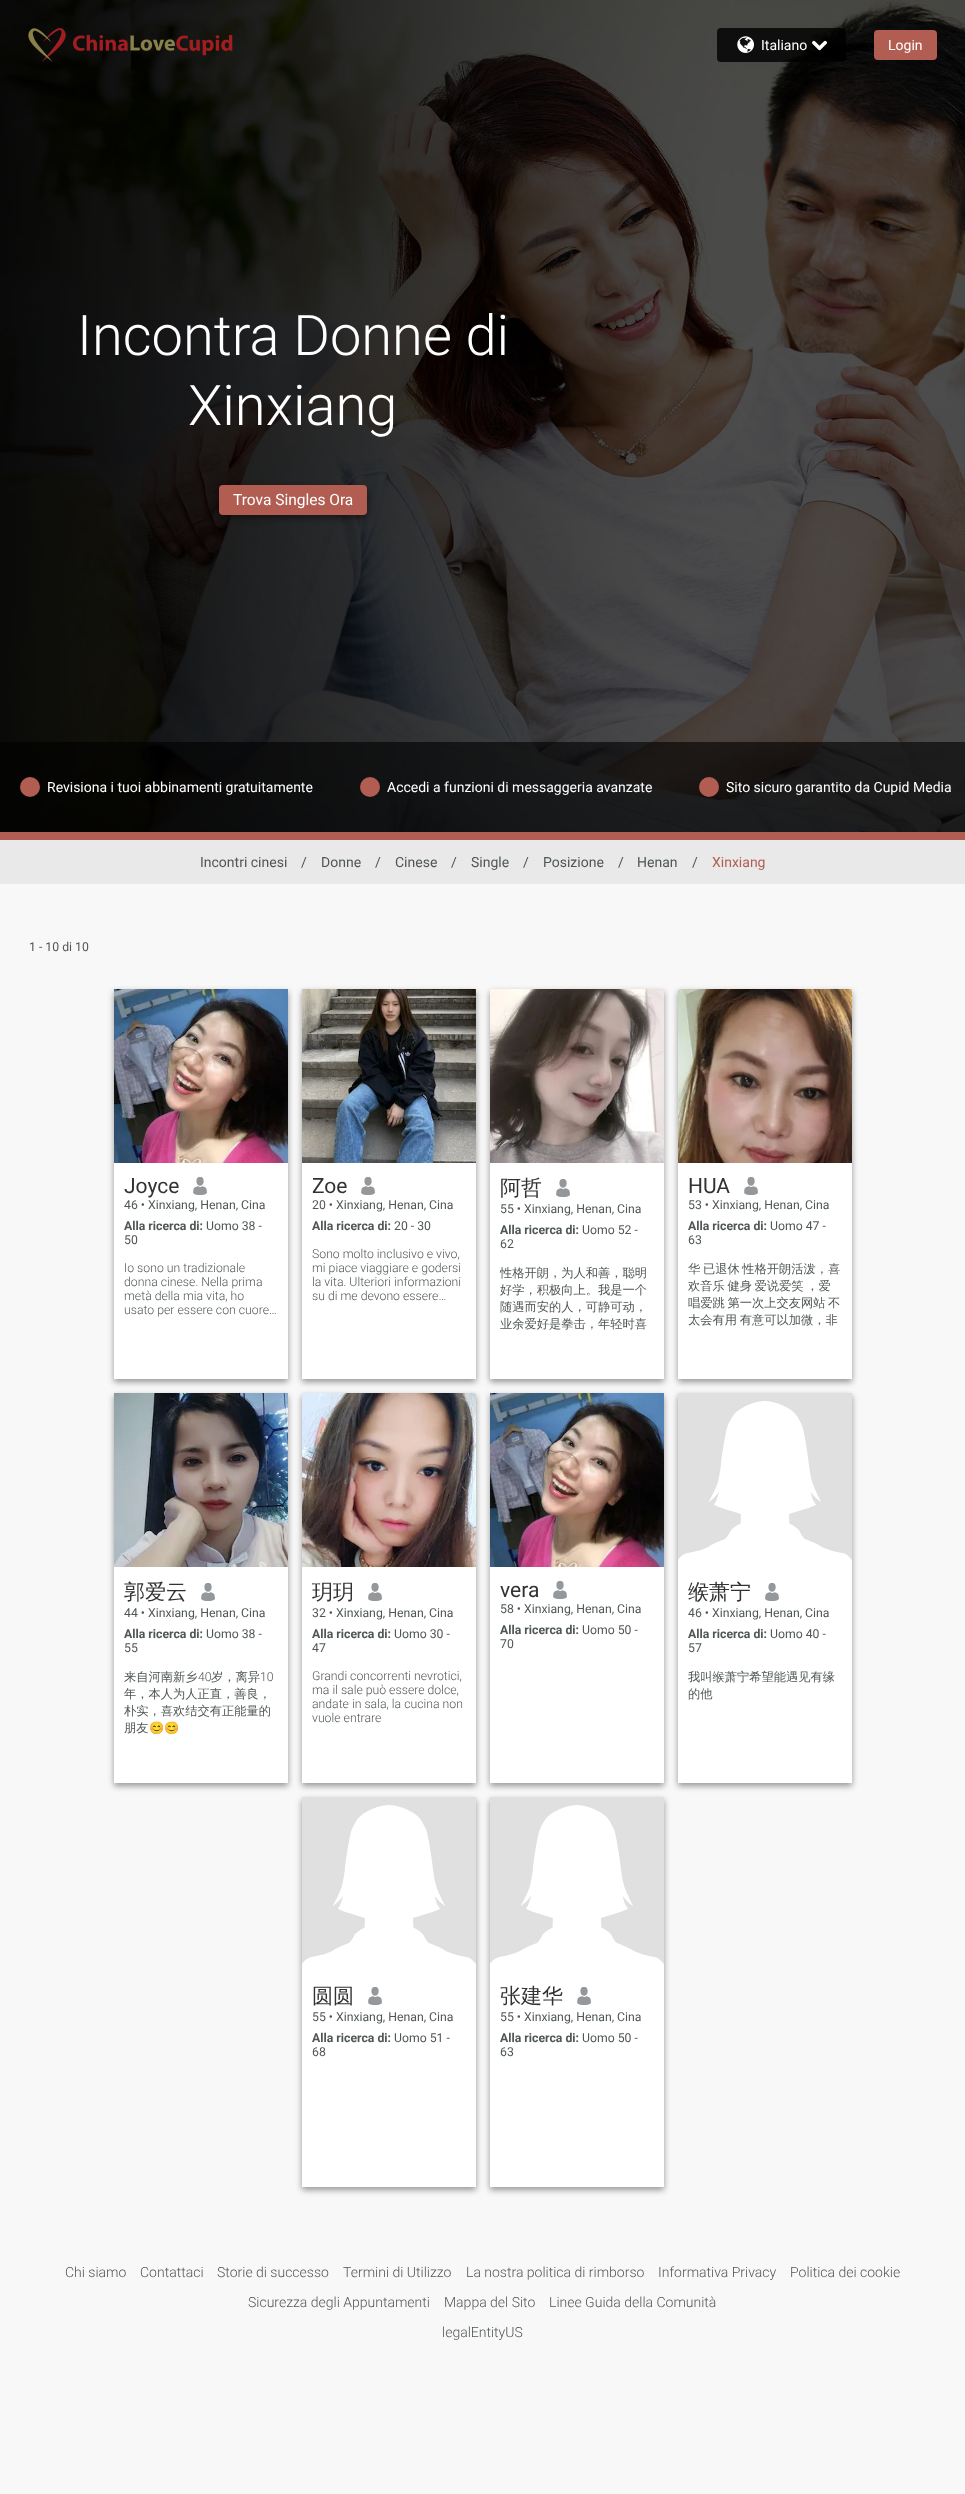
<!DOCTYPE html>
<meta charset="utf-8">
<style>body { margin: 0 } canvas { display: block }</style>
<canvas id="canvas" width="965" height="2494"></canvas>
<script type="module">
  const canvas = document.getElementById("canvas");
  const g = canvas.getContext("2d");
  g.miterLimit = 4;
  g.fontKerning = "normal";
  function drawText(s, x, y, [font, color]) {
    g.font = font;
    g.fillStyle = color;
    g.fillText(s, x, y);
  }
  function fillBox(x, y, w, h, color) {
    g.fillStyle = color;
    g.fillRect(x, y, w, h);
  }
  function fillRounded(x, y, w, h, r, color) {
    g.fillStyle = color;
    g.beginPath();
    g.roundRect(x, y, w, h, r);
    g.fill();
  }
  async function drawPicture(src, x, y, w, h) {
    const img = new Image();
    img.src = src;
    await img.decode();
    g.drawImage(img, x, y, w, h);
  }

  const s1 = ["14px Roboto", "#FFFFFF"];
  const s2 = ["300 56px Roboto", "#FFFFFF"];
  const s3 = ["15.5px Roboto", "#FFFFFF"];
  const s4 = ["14px Roboto", "#505656"];
  const s5 = ["14px Roboto", "#B15D51"];
  const s6 = ["12.25px Roboto", "#505656"];
  const s7 = ["21px Roboto", "#323232"];
  const s8 = ["bold 12.25px Roboto", "#505656"];
  const s9 = ["300 12.25px Roboto", "#505656"];
  const s10 = ["500 21px WenQuanYi Zen Hei", "#323232"];
  const s11 = ["500 12.25px WenQuanYi Zen Hei", "#505656"];
  const s12 = ["12.25px Noto Color Emoji", "#505656"];
  const s13 = ["300 14px Roboto", "#505656"];

  fillBox(0, 0, 965, 2494, "#F8F8F8");
  await drawPicture("pic5.png", 0, 0, 965, 832);
  await drawPicture("pic1.png", 28, 28, 38, 34);
  await drawPicture("pic2.png", 73, 34, 160, 22);
  fillRounded(717, 28, 129, 34, 4, "rgba(0, 0, 0, 0.8)");
  await drawPicture("pic3.png", 737, 36, 17, 17);
  drawText("Italiano", 761, 50, s1);
  await drawPicture("pic4.png", 812, 40, 15, 11);
  fillRounded(874, 30, 63, 30, 4, "#B15D51");
  drawText("Login", 888, 50, s1);
  drawText("Incontra Donne di", 77, 355, s2);
  drawText("Xinxiang", 188, 425, s2);
  g.fillStyle = "rgba(0, 0, 0, 0.4)";
  g.filter = "blur(3px)";
  g.beginPath();
  g.roundRect(219, 488, 148, 30, 4);
  g.fill();
  g.filter = "none";
  fillRounded(219, 485, 148, 30, 4, "#B15D51");
  drawText("Trova Singles Ora", 233, 505, s3);
  fillBox(0, 742, 965, 90, "rgba(0, 0, 0, 0.6)");
  g.fillStyle = "#B15D51";
  g.beginPath();
  g.arc(30, 787, 10, 0, Math.PI * 2);
  g.fill();
  drawText("Revisiona i tuoi abbinamenti gratuitamente", 47, 792, s1);
  g.fillStyle = "#B15D51";
  g.beginPath();
  g.arc(370, 787, 10, 0, Math.PI * 2);
  g.fill();
  drawText("Accedi a funzioni di messaggeria avanzate", 387, 792, s1);
  g.fillStyle = "#B15D51";
  g.beginPath();
  g.arc(709, 787, 10, 0, Math.PI * 2);
  g.fill();
  drawText("Sito sicuro garantito da Cupid Media", 726, 792, s1);
  fillBox(0, 832, 965, 8, "#B15D51");
  fillBox(0, 840, 965, 44, "#E9E9E9");
  drawText("Incontri cinesi", 200, 867, s4);
  drawText("/", 301, 867, s4);
  drawText("Donne", 321, 867, s4);
  drawText("/", 375, 867, s4);
  drawText("Cinese", 395, 867, s4);
  drawText("/", 451, 867, s4);
  drawText("Single", 471, 867, s4);
  drawText("/", 523, 867, s4);
  drawText("Posizione", 543, 867, s4);
  drawText("/", 618, 867, s4);
  drawText("Henan", 637, 867, s4);
  drawText("/", 692, 867, s4);
  drawText("Xinxiang", 712, 867, s5);
  drawText("1 - 10 di 10", 29, 951, s6);
  g.fillStyle = "rgba(0, 0, 0, 0.4)";
  g.filter = "blur(3px)";
  g.beginPath();
  g.rect(114, 992, 174, 390);
  g.fill();
  g.filter = "none";
  fillBox(114, 1163, 174, 216, "#FFFFFF");
  await drawPicture("pic6.png", 114, 989, 174, 174);
  drawText("Joyce", 124, 1193, s7);
  await drawPicture("pic7.png", 193, 1177, 14, 18);
  drawText("46 • Xinxiang, Henan, Cina", 124, 1209, s6);
  drawText("Alla ricerca di:", 124, 1230, s8);
  drawText("Uomo 38 -", 206, 1230, s6);
  drawText("50", 124, 1244, s6);
  drawText("Io sono un tradizionale", 124, 1272, s9);
  drawText("donna cinese. Nella prima", 124, 1286, s9);
  drawText("metà della mia vita, ho", 124, 1300, s9);
  drawText("usato per essere con cuore…", 124, 1314, s9);
  g.fillStyle = "rgba(0, 0, 0, 0.4)";
  g.filter = "blur(3px)";
  g.beginPath();
  g.rect(302, 992, 174, 390);
  g.fill();
  g.filter = "none";
  fillBox(302, 1163, 174, 216, "#FFFFFF");
  await drawPicture("pic8.png", 302, 989, 174, 174);
  drawText("Zoe", 312, 1193, s7);
  await drawPicture("pic7.png", 361, 1177, 14, 18);
  drawText("20 • Xinxiang, Henan, Cina", 312, 1209, s6);
  drawText("Alla ricerca di:", 312, 1230, s8);
  drawText("20 - 30", 394, 1230, s6);
  drawText("Sono molto inclusivo e vivo,", 312, 1258, s9);
  drawText("mi piace viaggiare e godersi", 312, 1272, s9);
  drawText("la vita. Ulteriori informazioni", 312, 1286, s9);
  drawText("su di me devono essere…", 312, 1300, s9);
  g.fillStyle = "rgba(0, 0, 0, 0.4)";
  g.filter = "blur(3px)";
  g.beginPath();
  g.rect(490, 992, 174, 390);
  g.fill();
  g.filter = "none";
  fillBox(490, 1163, 174, 216, "#FFFFFF");
  await drawPicture("pic9.png", 490, 989, 174, 174);
  drawText("阿哲", 500, 1195, s10);
  await drawPicture("pic7.png", 556, 1179, 14, 18);
  drawText("55 • Xinxiang, Henan, Cina", 500, 1213, s6);
  drawText("Alla ricerca di:", 500, 1234, s8);
  drawText("Uomo 52 -", 582, 1234, s6);
  drawText("62", 500, 1248, s6);
  drawText("性格开朗，为人和善，聪明", 500, 1277, s11);
  drawText("好学，积极向上。我是一个", 500, 1294, s11);
  drawText("随遇而安的人，可静可动，", 500, 1311, s11);
  drawText("业余爱好是拳击，年轻时喜", 500, 1328, s11);
  g.fillStyle = "rgba(0, 0, 0, 0.4)";
  g.filter = "blur(3px)";
  g.beginPath();
  g.rect(678, 992, 174, 390);
  g.fill();
  g.filter = "none";
  fillBox(678, 1163, 174, 216, "#FFFFFF");
  await drawPicture("pic10.png", 678, 989, 174, 174);
  drawText("HUA", 688, 1193, s7);
  await drawPicture("pic7.png", 744, 1177, 14, 18);
  drawText("53 • Xinxiang, Henan, Cina", 688, 1209, s6);
  drawText("Alla ricerca di:", 688, 1230, s8);
  drawText("Uomo 47 -", 770, 1230, s6);
  drawText("63", 688, 1244, s6);
  g.wordSpacing = "-1px";
  drawText("华 已退休 性格开朗活泼，喜", 688, 1273, s11);
  drawText("欢音乐 健身 爱说爱笑 ，爱", 688, 1290, s11);
  drawText("唱爱跳 第一次上交友网站 不", 688, 1307, s11);
  drawText("太会有用 有意可以加微，非", 688, 1324, s11);
  g.fillStyle = "rgba(0, 0, 0, 0.4)";
  g.filter = "blur(3px)";
  g.beginPath();
  g.rect(114, 1396, 174, 390);
  g.fill();
  g.filter = "none";
  fillBox(114, 1567, 174, 216, "#FFFFFF");
  await drawPicture("pic11.png", 114, 1393, 174, 174);
  g.wordSpacing = "0px";
  drawText("郭爱云", 124, 1599, s10);
  await drawPicture("pic7.png", 201, 1583, 14, 18);
  drawText("44 • Xinxiang, Henan, Cina", 124, 1617, s6);
  drawText("Alla ricerca di:", 124, 1638, s8);
  drawText("Uomo 38 -", 206, 1638, s6);
  drawText("55", 124, 1652, s6);
  drawText("来自河南新乡", 124, 1681, s11);
  drawText("40", 198, 1681, s9);
  drawText("岁，离异", 211, 1681, s11);
  drawText("10", 260, 1681, s9);
  drawText("年，本人为人正直，善良，", 124, 1698, s11);
  drawText("朴实，喜欢结交有正能量的", 124, 1715, s11);
  drawText("朋友", 124, 1732, s11);
  drawText("😊😊", 149, 1732, s12);
  g.fillStyle = "rgba(0, 0, 0, 0.4)";
  g.filter = "blur(3px)";
  g.beginPath();
  g.rect(302, 1396, 174, 390);
  g.fill();
  g.filter = "none";
  fillBox(302, 1567, 174, 216, "#FFFFFF");
  await drawPicture("pic12.png", 302, 1393, 174, 174);
  drawText("玥玥", 312, 1599, s10);
  await drawPicture("pic7.png", 368, 1583, 14, 18);
  drawText("32 • Xinxiang, Henan, Cina", 312, 1617, s6);
  drawText("Alla ricerca di:", 312, 1638, s8);
  drawText("Uomo 30 -", 394, 1638, s6);
  drawText("47", 312, 1652, s6);
  drawText("Grandi concorrenti nevrotici,", 312, 1680, s9);
  drawText("ma il sale può essere dolce,", 312, 1694, s9);
  drawText("andate in sala, la cucina non", 312, 1708, s9);
  drawText("vuole entrare", 312, 1722, s9);
  g.fillStyle = "rgba(0, 0, 0, 0.4)";
  g.filter = "blur(3px)";
  g.beginPath();
  g.rect(490, 1396, 174, 390);
  g.fill();
  g.filter = "none";
  fillBox(490, 1567, 174, 216, "#FFFFFF");
  await drawPicture("pic13.png", 490, 1393, 174, 174);
  drawText("vera", 500, 1597, s7);
  await drawPicture("pic7.png", 553, 1581, 14, 18);
  drawText("58 • Xinxiang, Henan, Cina", 500, 1613, s6);
  drawText("Alla ricerca di:", 500, 1634, s8);
  drawText("Uomo 50 -", 582, 1634, s6);
  drawText("70", 500, 1648, s6);
  g.fillStyle = "rgba(0, 0, 0, 0.4)";
  g.filter = "blur(3px)";
  g.beginPath();
  g.rect(678, 1396, 174, 390);
  g.fill();
  g.filter = "none";
  fillBox(678, 1567, 174, 216, "#FFFFFF");
  fillBox(678, 1393, 174, 167, "#E0E0E0");
  await drawPicture("pic14.png", 678, 1401, 174, 166);
  drawText("缑萧宁", 688, 1599, s10);
  await drawPicture("pic7.png", 765, 1583, 14, 18);
  drawText("46 • Xinxiang, Henan, Cina", 688, 1617, s6);
  drawText("Alla ricerca di:", 688, 1638, s8);
  drawText("Uomo 40 -", 770, 1638, s6);
  drawText("57", 688, 1652, s6);
  drawText("我叫缑萧宁希望能遇见有缘", 688, 1681, s11);
  drawText("的他", 688, 1698, s11);
  g.fillStyle = "rgba(0, 0, 0, 0.4)";
  g.filter = "blur(3px)";
  g.beginPath();
  g.rect(302, 1800, 174, 390);
  g.fill();
  g.filter = "none";
  fillBox(302, 1971, 174, 216, "#FFFFFF");
  fillBox(302, 1797, 174, 167, "#E0E0E0");
  await drawPicture("pic15.png", 302, 1805, 174, 166);
  drawText("圆圆", 312, 2003, s10);
  await drawPicture("pic7.png", 368, 1987, 14, 18);
  drawText("55 • Xinxiang, Henan, Cina", 312, 2021, s6);
  drawText("Alla ricerca di:", 312, 2042, s8);
  drawText("Uomo 51 -", 394, 2042, s6);
  drawText("68", 312, 2056, s6);
  g.fillStyle = "rgba(0, 0, 0, 0.4)";
  g.filter = "blur(3px)";
  g.beginPath();
  g.rect(490, 1800, 174, 390);
  g.fill();
  g.filter = "none";
  fillBox(490, 1971, 174, 216, "#FFFFFF");
  fillBox(490, 1797, 174, 167, "#E0E0E0");
  await drawPicture("pic16.png", 490, 1805, 174, 166);
  drawText("张建华", 500, 2003, s10);
  await drawPicture("pic7.png", 577, 1987, 14, 18);
  drawText("55 • Xinxiang, Henan, Cina", 500, 2021, s6);
  drawText("Alla ricerca di:", 500, 2042, s8);
  drawText("Uomo 50 -", 582, 2042, s6);
  drawText("63", 500, 2056, s6);
  drawText("Chi siamo", 65, 2277, s13);
  drawText("Contattaci", 140, 2277, s13);
  drawText("Storie di successo", 217, 2277, s13);
  drawText("Termini di Utilizzo", 343, 2277, s13);
  drawText("La nostra politica di rimborso", 466, 2277, s13);
  drawText("Informativa Privacy", 658, 2277, s13);
  drawText("Politica dei cookie", 790, 2277, s13);
  drawText("Sicurezza degli Appuntamenti", 248, 2307, s13);
  drawText("Mappa del Sito", 444, 2307, s13);
  drawText("Linee Guida della Comunità", 549, 2307, s13);
  drawText("legalEntityUS", 442, 2337, s13);
</script>
